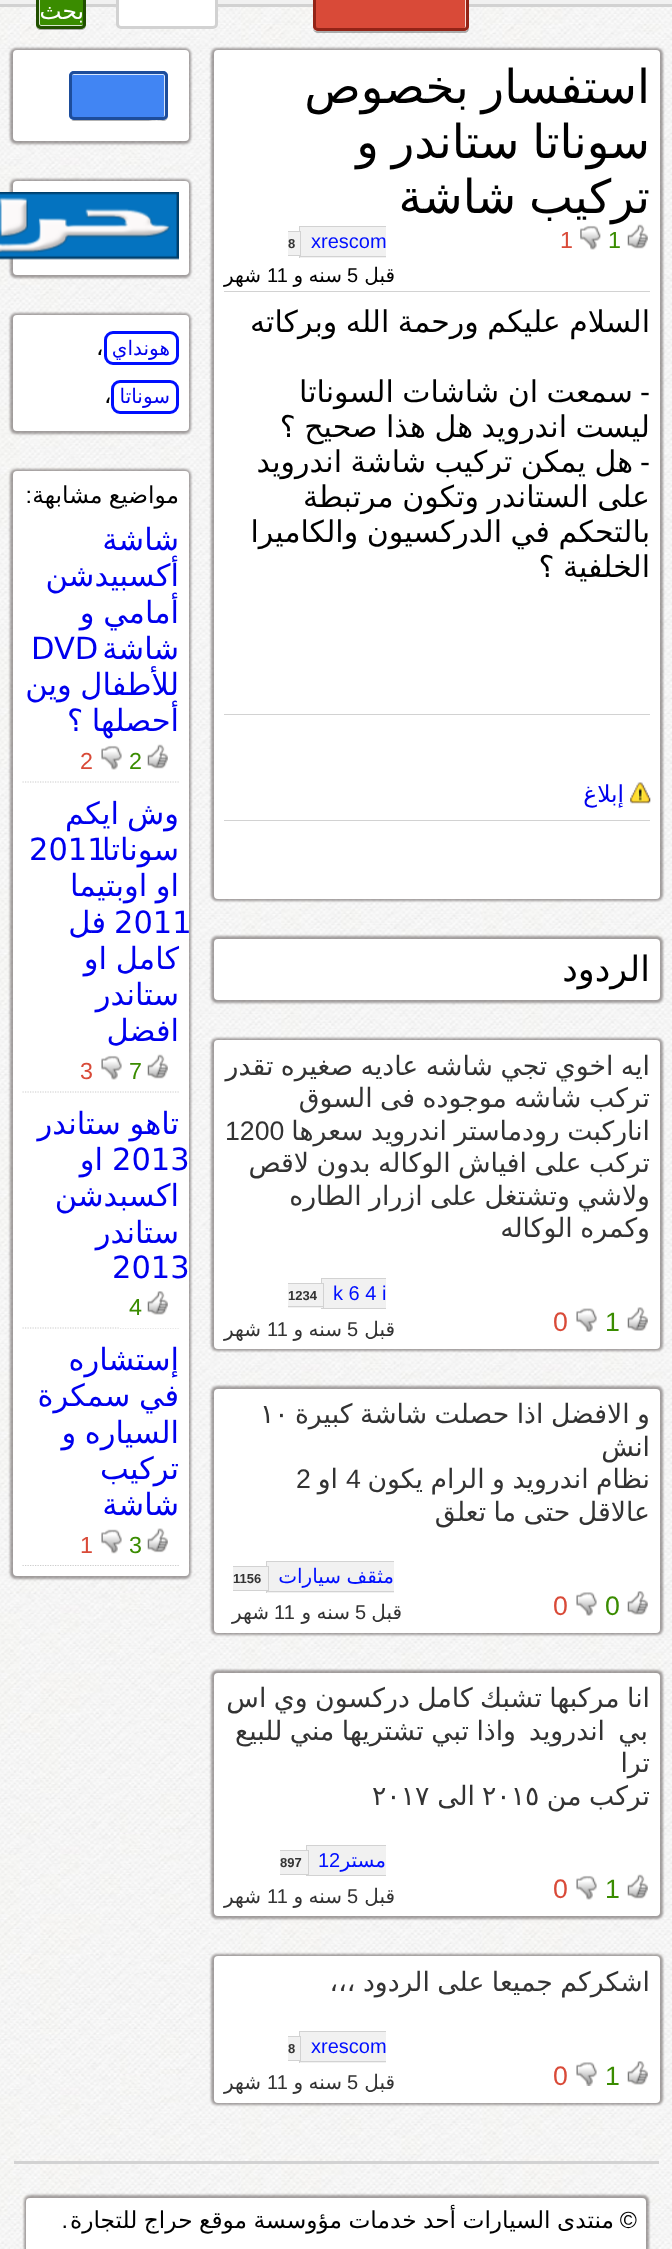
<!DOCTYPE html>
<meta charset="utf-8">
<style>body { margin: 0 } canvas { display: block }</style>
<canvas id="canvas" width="672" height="2249"></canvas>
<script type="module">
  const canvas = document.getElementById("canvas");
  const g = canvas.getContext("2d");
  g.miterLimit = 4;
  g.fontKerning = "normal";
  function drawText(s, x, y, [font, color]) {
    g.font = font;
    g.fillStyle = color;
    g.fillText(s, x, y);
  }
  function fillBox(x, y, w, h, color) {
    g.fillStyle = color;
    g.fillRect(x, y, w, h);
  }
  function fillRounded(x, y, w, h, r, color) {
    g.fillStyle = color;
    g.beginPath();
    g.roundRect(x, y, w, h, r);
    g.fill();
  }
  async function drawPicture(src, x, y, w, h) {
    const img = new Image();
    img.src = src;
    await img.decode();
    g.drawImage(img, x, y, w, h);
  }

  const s1 = ["23.3px DejaVu Sans", "#FFFFFF"];
  const s2 = ["46.75px DejaVu Sans", "#000000"];
  const s3 = ["23.3px Liberation Sans", "#3A8C00"];
  const s4 = ["23.3px Liberation Sans", "#D94A38"];
  const s5 = ["20px Liberation Sans", "#000FFF"];
  const s6 = ["bold 13px Liberation Sans", "#333333"];
  const s7 = ["20px DejaVu Sans", "#000000"];
  const s8 = ["20px Liberation Sans", "#000000"];
  const s9 = ["30px DejaVu Sans", "#000000"];
  const s10 = ["30px Liberation Sans", "#000000"];
  const s11 = ["23.3px DejaVu Sans", "#0000EE"];
  const s12 = ["35px DejaVu Sans", "#000000"];
  const s13 = ["26.7px DejaVu Sans", "#333333"];
  const s14 = ["26.7px Liberation Sans", "#333333"];
  const s15 = ["26.7px Liberation Sans", "#3A8C00"];
  const s16 = ["26.7px Liberation Sans", "#D94A38"];
  const s17 = ["20px DejaVu Sans", "#333333"];
  const s18 = ["20px Liberation Sans", "#333333"];
  const s19 = ["20px DejaVu Sans", "#000FFF"];
  const s20 = ["20px DejaVu Sans", "#0000EE"];
  const s21 = ["23.3px DejaVu Sans", "#000000"];
  const s22 = ["23.3px Liberation Sans", "#000000"];
  const s23 = ["30.5px DejaVu Sans", "#0000EE"];

  fillBox(0, 0, 672, 2249, "#FFFFFF");
  await drawPicture("pic1.png", 0, 7, 672, 2242);
  fillBox(0, 0, 672, 4, "#F1F1F1");
  fillBox(0, 4, 672, 3, "#D2D2D2");
  g.fillStyle = "rgba(0, 0, 0, 0.3)";
  g.beginPath();
  g.moveTo(313, 29);
  g.bezierCurveTo(313, 31, 316, 33, 318, 33);
  g.lineTo(464, 33);
  g.bezierCurveTo(467, 33, 469, 31, 469, 28);
  g.lineTo(469, -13);
  g.lineTo(469, 27);
  g.bezierCurveTo(469, 29, 467, 31, 464, 31);
  g.lineTo(317, 31);
  g.bezierCurveTo(315, 31, 314, 30, 313, 29);
  g.closePath();
  g.fill();
  fillRounded(313, -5, 156, 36, 5, "#D94A38");
  g.beginPath();
  g.roundRect(315.5, -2.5, 150, 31, 1.5);
  g.strokeStyle = "#F7DBD7";
  g.stroke();
  g.beginPath();
  g.roundRect(314.5, -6.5, 153, 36, 3.5);
  g.strokeStyle = "#932417";
  g.lineWidth = 3;
  g.stroke();
  g.fillStyle = "#FFFFFF";
  g.beginPath();
  g.roundRect(117.5, -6.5, 99, 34, 3.5);
  g.fill();
  g.strokeStyle = "#D2D2D2";
  g.stroke();
  g.fillStyle = "rgba(0, 0, 0, 0.3)";
  g.beginPath();
  g.moveTo(36, -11);
  g.lineTo(36, 25);
  g.bezierCurveTo(36, 28, 38, 30, 41, 30);
  g.lineTo(81, 30);
  g.bezierCurveTo(84, 30, 86, 28, 86, 26);
  g.bezierCurveTo(84, 30, 78, 29, 75, 29);
  g.lineTo(48, 29);
  g.bezierCurveTo(37, 29, 36, 29, 36, 18);
  g.closePath();
  g.fill();
  fillRounded(36, -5, 50, 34, 5, "#3A8C00");
  g.beginPath();
  g.roundRect(39.5, -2.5, 44, 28, 1.5);
  g.strokeStyle = "#D8E8CC";
  g.lineWidth = 1;
  g.stroke();
  g.beginPath();
  g.roundRect(37.5, -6.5, 47, 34, 3.5);
  g.strokeStyle = "#214F00";
  g.lineWidth = 3;
  g.stroke();
  g.direction = "rtl";
  drawText("بحث", 84, 19, s1);
  g.fillStyle = "rgba(34, 25, 25, 0.4)";
  g.filter = "blur(1px)";
  g.beginPath();
  g.roundRect(211, 48, 452, 853, 6);
  g.fill();
  g.filter = "none";
  fillRounded(214, 50, 446, 849, 4, "#FFFFFF");
  g.wordSpacing = "-2px";
  drawText("استفسار بخصوص", 650, 103, s2);
  drawText("سوناتا ستاندر و", 650, 158, s2);
  await drawPicture("pic2.png", 627, 224, 21, 25);
  drawText("تركيب شاشة", 650, 213, s2);
  g.wordSpacing = "0px";
  g.direction = "ltr";
  drawText("1", 608, 248, s3);
  await drawPicture("pic3.png", 580, 225, 21, 25);
  drawText("1", 560, 248, s4);
  fillBox(300, 227, 86, 31, "#F1F1F1");
  drawText("xrescom", 311, 248, s5);
  fillBox(299, 226, 87, 1, "#D2D2D2");
  fillBox(299, 256, 87, 1, "#D2D2D2");
  fillBox(299, 226, 1, 32, "#D2D2D2");
  fillBox(288, 232, 12, 23, "#F1F1F1");
  drawText("8", 288, 248, s6);
  fillBox(288, 231, 13, 1, "#D2D2D2");
  fillBox(300, 231, 1, 25, "#D2D2D2");
  fillBox(288, 255, 13, 1, "#D2D2D2");
  g.direction = "rtl";
  drawText("قبل", 395, 282, s7);
  g.direction = "ltr";
  drawText("5", 347, 282, s8);
  g.wordSpacing = "-1px";
  g.direction = "rtl";
  drawText("سنه و", 342, 282, s7);
  g.wordSpacing = "0px";
  g.direction = "ltr";
  drawText("11", 267, 282, s8);
  g.direction = "rtl";
  drawText("شهر", 261, 282, s7);
  fillBox(224, 291, 426, 1, "#D2D2D2");
  g.wordSpacing = "-1px";
  drawText("السلام عليكم ورحمة الله وبركاته", 650, 332, s9);
  g.wordSpacing = "0px";
  drawText("-", 650, 402, s10);
  g.wordSpacing = "-1px";
  drawText("سمعت ان شاشات السوناتا", 633, 402, s9);
  drawText("ليست اندرويد هل هذا صحيح ؟", 650, 437, s9);
  g.wordSpacing = "0px";
  drawText("-", 650, 472, s10);
  g.wordSpacing = "-1px";
  drawText("هل يمكن تركيب شاشة اندرويد", 633, 472, s9);
  drawText("على الستاندر وتكون مرتبطة", 650, 507, s9);
  drawText("بالتحكم في الدركسيون والكاميرا", 650, 542, s9);
  drawText("الخلفية ؟", 650, 577, s9);
  fillBox(224, 714, 426, 1, "#D2D2D2");
  await drawPicture("pic4.png", 630, 782, 21, 22);
  g.wordSpacing = "0px";
  drawText("إبلاغ", 624, 802, s11);
  fillBox(224, 820, 426, 1, "#D2D2D2");
  g.fillStyle = "rgba(34, 25, 25, 0.4)";
  g.filter = "blur(1px)";
  g.beginPath();
  g.roundRect(211, 936, 452, 67, 6);
  g.fill();
  g.filter = "none";
  fillRounded(214, 939, 446, 61, 4, "#FFFFFF");
  drawText("الردود", 650, 981, s12);
  g.fillStyle = "rgba(34, 25, 25, 0.4)";
  g.filter = "blur(1px)";
  g.beginPath();
  g.roundRect(211, 1038, 452, 313, 6);
  g.fill();
  g.filter = "none";
  fillRounded(214, 1040, 446, 309, 4, "#FFFFFF");
  g.wordSpacing = "-1px";
  drawText("ايه اخوي تجي شاشه عاديه صغيره تقدر", 650, 1075, s13);
  drawText("تركب شاشه موجوده فى السوق", 650, 1107, s13);
  drawText("اناركبت رودماستر اندرويد سعرها", 650, 1140, s13);
  g.wordSpacing = "0px";
  g.direction = "ltr";
  drawText("1200", 225, 1140, s14);
  g.wordSpacing = "-1px";
  g.direction = "rtl";
  drawText("تركب على افياش الوكاله بدون لاقص", 650, 1172, s13);
  drawText("ولاشي وتشتغل على ازرار الطاره", 650, 1205, s13);
  drawText("وكمره الوكاله", 650, 1237, s13);
  await drawPicture("pic5.png", 627, 1307, 21, 24);
  g.wordSpacing = "0px";
  g.direction = "ltr";
  drawText("1", 605, 1331, s15);
  await drawPicture("pic6.png", 576, 1308, 21, 24);
  drawText("0", 553, 1331, s16);
  fillBox(322, 1279, 64, 29, "#F1F1F1");
  drawText("k 6 4 i", 333, 1300, s5);
  fillBox(321, 1278, 65, 1, "#D2D2D2");
  fillBox(321, 1308, 65, 1, "#D2D2D2");
  fillBox(321, 1278, 1, 31, "#D2D2D2");
  fillBox(288, 1284, 34, 24, "#F1F1F1");
  drawText("1234", 288, 1300, s6);
  fillBox(288, 1283, 36, 1, "#D2D2D2");
  fillBox(323, 1283, 1, 25, "#D2D2D2");
  fillBox(288, 1306, 36, 1, "#D2D2D2");
  g.direction = "rtl";
  drawText("قبل", 395, 1336, s17);
  g.direction = "ltr";
  drawText("5", 347, 1336, s18);
  g.wordSpacing = "-1px";
  g.direction = "rtl";
  drawText("سنه و", 342, 1336, s17);
  g.wordSpacing = "0px";
  g.direction = "ltr";
  drawText("11", 267, 1336, s18);
  g.direction = "rtl";
  drawText("شهر", 261, 1336, s17);
  g.fillStyle = "rgba(34, 25, 25, 0.4)";
  g.filter = "blur(1px)";
  g.beginPath();
  g.roundRect(211, 1386, 452, 249, 6);
  g.fill();
  g.filter = "none";
  fillRounded(214, 1389, 446, 244, 4, "#FFFFFF");
  g.wordSpacing = "-1px";
  drawText("و الافضل اذا حصلت شاشة كبيرة", 650, 1423, s13);
  g.wordSpacing = "0px";
  g.direction = "ltr";
  drawText("١٠", 260, 1423, s13);
  g.direction = "rtl";
  drawText("انش", 650, 1456, s13);
  g.wordSpacing = "-1px";
  drawText("نظام اندرويد و الرام يكون", 650, 1488, s13);
  g.wordSpacing = "0px";
  g.direction = "ltr";
  drawText("4", 346, 1488, s14);
  g.direction = "rtl";
  drawText("او", 338, 1488, s13);
  g.direction = "ltr";
  drawText("2", 296, 1488, s14);
  g.wordSpacing = "-1px";
  g.direction = "rtl";
  drawText("عالاقل حتى ما تعلق", 650, 1521, s13);
  await drawPicture("pic7.png", 627, 1591, 21, 24);
  g.wordSpacing = "0px";
  g.direction = "ltr";
  drawText("0", 605, 1615, s15);
  await drawPicture("pic8.png", 576, 1592, 21, 24);
  drawText("0", 553, 1615, s16);
  fillBox(267, 1562, 127, 31, "#F1F1F1");
  g.wordSpacing = "-1px";
  g.direction = "rtl";
  drawText("مثقف سيارات", 394, 1583, s19);
  fillBox(266, 1561, 128, 1, "#D2D2D2");
  fillBox(266, 1591, 128, 1, "#D2D2D2");
  fillBox(266, 1561, 1, 32, "#D2D2D2");
  fillBox(233, 1567, 34, 23, "#F1F1F1");
  g.wordSpacing = "0px";
  g.direction = "ltr";
  drawText("1156", 233, 1583, s6);
  fillBox(233, 1566, 36, 1, "#D2D2D2");
  fillBox(268, 1566, 1, 25, "#D2D2D2");
  fillBox(233, 1590, 36, 1, "#D2D2D2");
  g.direction = "rtl";
  drawText("قبل", 402, 1619, s17);
  g.direction = "ltr";
  drawText("5", 355, 1619, s18);
  g.wordSpacing = "-1px";
  g.direction = "rtl";
  drawText("سنه و", 350, 1619, s17);
  g.wordSpacing = "0px";
  g.direction = "ltr";
  drawText("11", 274, 1619, s18);
  g.direction = "rtl";
  drawText("شهر", 269, 1619, s17);
  g.fillStyle = "rgba(34, 25, 25, 0.4)";
  g.filter = "blur(1px)";
  g.beginPath();
  g.roundRect(211, 1670, 452, 249, 6);
  g.fill();
  g.filter = "none";
  fillRounded(214, 1673, 446, 243, 4, "#FFFFFF");
  g.wordSpacing = "-1px";
  drawText("انا مركبها تشبك كامل دركسون وي اس", 650, 1707, s13);
  g.wordSpacing = "0px";
  drawText("بي", 648, 1740, s13);
  drawText("اندرويد", 605, 1740, s13);
  g.wordSpacing = "-1px";
  drawText("واذا تبي تشتريها مني للبيع", 516, 1740, s13);
  g.wordSpacing = "0px";
  drawText("ترا", 650, 1772, s13);
  g.wordSpacing = "-1px";
  drawText("تركب من", 650, 1805, s13);
  g.wordSpacing = "0px";
  g.direction = "ltr";
  drawText("٢٠١٥", 482, 1805, s13);
  g.direction = "rtl";
  drawText("الى", 475, 1805, s13);
  g.direction = "ltr";
  drawText("٢٠١٧", 372, 1805, s13);
  await drawPicture("pic2.png", 627, 1874, 21, 25);
  drawText("1", 605, 1898, s15);
  await drawPicture("pic9.png", 576, 1875, 21, 25);
  drawText("0", 553, 1898, s16);
  fillBox(307, 1846, 79, 29, "#F1F1F1");
  drawText("12", 318, 1867, s5);
  g.direction = "rtl";
  drawText("مستر", 386, 1867, s19);
  fillBox(306, 1875, 80, 1, "#D2D2D2");
  fillBox(306, 1845, 80, 1, "#D2D2D2");
  fillBox(306, 1845, 1, 31, "#D2D2D2");
  fillBox(280, 1851, 27, 23, "#F1F1F1");
  g.direction = "ltr";
  drawText("897", 280, 1867, s6);
  fillBox(280, 1850, 29, 1, "#D2D2D2");
  fillBox(308, 1850, 1, 25, "#D2D2D2");
  fillBox(280, 1874, 29, 1, "#D2D2D2");
  g.direction = "rtl";
  drawText("قبل", 395, 1903, s17);
  g.direction = "ltr";
  drawText("5", 347, 1903, s18);
  g.wordSpacing = "-1px";
  g.direction = "rtl";
  drawText("سنه و", 342, 1903, s17);
  g.wordSpacing = "0px";
  g.direction = "ltr";
  drawText("11", 267, 1903, s18);
  g.direction = "rtl";
  drawText("شهر", 261, 1903, s17);
  g.fillStyle = "rgba(34, 25, 25, 0.4)";
  g.filter = "blur(1px)";
  g.beginPath();
  g.roundRect(211, 1954, 452, 151, 6);
  g.fill();
  g.filter = "none";
  fillRounded(214, 1956, 446, 147, 4, "#FFFFFF");
  g.wordSpacing = "-1px";
  drawText("اشكركم جميعا على الردود ،،،", 650, 1991, s13);
  await drawPicture("pic7.png", 627, 2061, 21, 24);
  g.wordSpacing = "0px";
  g.direction = "ltr";
  drawText("1", 605, 2085, s15);
  await drawPicture("pic10.png", 576, 2062, 21, 24);
  drawText("0", 553, 2085, s16);
  fillBox(300, 2032, 86, 31, "#F1F1F1");
  drawText("xrescom", 311, 2053, s5);
  fillBox(299, 2031, 87, 1, "#D2D2D2");
  fillBox(299, 2061, 87, 1, "#D2D2D2");
  fillBox(299, 2031, 1, 32, "#D2D2D2");
  fillBox(288, 2037, 12, 23, "#F1F1F1");
  drawText("8", 288, 2053, s6);
  fillBox(288, 2036, 13, 1, "#D2D2D2");
  fillBox(300, 2036, 1, 25, "#D2D2D2");
  fillBox(288, 2060, 13, 1, "#D2D2D2");
  g.direction = "rtl";
  drawText("قبل", 395, 2089, s17);
  g.direction = "ltr";
  drawText("5", 347, 2089, s18);
  g.wordSpacing = "-1px";
  g.direction = "rtl";
  drawText("سنه و", 342, 2089, s17);
  g.wordSpacing = "0px";
  g.direction = "ltr";
  drawText("11", 267, 2089, s18);
  g.direction = "rtl";
  drawText("شهر", 261, 2089, s17);
  g.fillStyle = "rgba(34, 25, 25, 0.4)";
  g.filter = "blur(1px)";
  g.beginPath();
  g.roundRect(10, 48, 181, 96, 6);
  g.fill();
  g.filter = "none";
  fillRounded(13, 50, 176, 91, 4, "#FFFFFF");
  g.fillStyle = "#B3B3B3";
  g.beginPath();
  g.moveTo(69, 117);
  g.bezierCurveTo(70, 119, 72, 121, 74, 121);
  g.lineTo(163, 121);
  g.bezierCurveTo(166, 121, 168, 119, 168, 116);
  g.lineTo(168, 78);
  g.lineTo(167, 76);
  g.lineTo(167, 116);
  g.bezierCurveTo(166, 123, 149, 120, 148, 120);
  g.lineTo(73, 120);
  g.bezierCurveTo(71, 120, 70, 119, 69, 117);
  g.closePath();
  g.fill();
  fillRounded(69, 71, 99, 49, 5, "#4185F3");
  g.beginPath();
  g.roundRect(71.5, 74.5, 93, 43, 1.5);
  g.strokeStyle = "#D9E7FD";
  g.lineWidth = 1;
  g.stroke();
  g.beginPath();
  g.roundRect(70.5, 72.5, 96, 46, 3.5);
  g.strokeStyle = "#1D4D9B";
  g.lineWidth = 3;
  g.stroke();
  g.fillStyle = "rgba(34, 25, 25, 0.4)";
  g.filter = "blur(1px)";
  g.beginPath();
  g.roundRect(10, 179, 181, 99, 6);
  g.fill();
  g.filter = "none";
  fillRounded(13, 181, 176, 94, 4, "#FFFFFF");
  await drawPicture("pic11.png", 0, 192, 179, 68);
  g.fillStyle = "rgba(34, 25, 25, 0.4)";
  g.filter = "blur(1px)";
  g.beginPath();
  g.roundRect(10, 313, 181, 121, 6);
  g.fill();
  g.filter = "none";
  fillRounded(13, 315, 176, 116, 4, "#FFFFFF");
  g.beginPath();
  g.roundRect(105.5, 332.5, 72, 31, 7.5);
  g.strokeStyle = "#000FFF";
  g.stroke();
  drawText("هونداي", 170, 355, s20);
  g.direction = "ltr";
  drawText("،", 96, 355, s21);
  g.beginPath();
  g.roundRect(112.5, 381.5, 65, 31, 7.5);
  g.stroke();
  g.direction = "rtl";
  drawText("سوناتا", 170, 403, s20);
  g.direction = "ltr";
  drawText("،", 104, 403, s21);
  g.fillStyle = "rgba(34, 25, 25, 0.4)";
  g.filter = "blur(1px)";
  g.beginPath();
  g.roundRect(10, 469, 181, 1110, 6);
  g.fill();
  g.filter = "none";
  fillRounded(13, 471, 176, 1105, 4, "#FFFFFF");
  g.wordSpacing = "-1px";
  g.direction = "rtl";
  drawText("مواضيع مشابهة", 179, 503, s21);
  g.wordSpacing = "0px";
  drawText(":", 32, 503, s22);
  g.beginPath();
  g.moveTo(22.5, 782);
  g.lineTo(179, 782);
  g.strokeStyle = "#CCCCCC";
  g.lineWidth = 1.2;
  g.setLineDash([1.25, 1.25]);
  g.stroke();
  drawText("شاشة", 179, 550, s23);
  drawText("أكسبيدشن", 179, 586, s23);
  g.wordSpacing = "-1px";
  drawText("أمامي و", 179, 623, s23);
  g.wordSpacing = "0px";
  drawText("شاشة", 179, 659, s23);
  g.direction = "ltr";
  drawText("DVD", 31, 659, s23);
  g.wordSpacing = "-1px";
  g.direction = "rtl";
  drawText("للأطفال وين", 179, 695, s23);
  drawText("أحصلها ؟", 179, 731, s23);
  await drawPicture("pic12.png", 147, 744, 21, 25);
  g.wordSpacing = "0px";
  g.direction = "ltr";
  drawText("2", 129, 769, s3);
  await drawPicture("pic9.png", 101, 745, 21, 25);
  drawText("2", 80, 769, s4);
  g.beginPath();
  g.moveTo(22.5, 1092);
  g.lineTo(179, 1092);
  g.stroke();
  g.direction = "rtl";
  drawText("وش", 179, 824, s23);
  drawText("ايكم", 119, 824, s23);
  drawText("سوناتا", 179, 860, s23);
  g.direction = "ltr";
  drawText("2011", 29, 860, s23);
  g.wordSpacing = "-1px";
  g.direction = "rtl";
  drawText("او اوبتيما", 179, 896, s23);
  g.wordSpacing = "0px";
  g.direction = "ltr";
  drawText("2011", 114, 933, s23);
  g.direction = "rtl";
  drawText("فل", 106, 933, s23);
  g.wordSpacing = "-1px";
  drawText("كامل او", 179, 969, s23);
  g.wordSpacing = "0px";
  drawText("ستاندر", 179, 1005, s23);
  drawText("افضل", 179, 1041, s23);
  await drawPicture("pic12.png", 147, 1054, 21, 25);
  g.direction = "ltr";
  drawText("7", 129, 1079, s3);
  await drawPicture("pic9.png", 101, 1055, 21, 25);
  drawText("3", 80, 1079, s4);
  g.beginPath();
  g.moveTo(22.5, 1328);
  g.lineTo(179, 1328);
  g.stroke();
  g.wordSpacing = "-1px";
  g.direction = "rtl";
  drawText("تاهو ستاندر", 179, 1134, s23);
  g.wordSpacing = "0px";
  g.direction = "ltr";
  drawText("2013", 112, 1170, s23);
  g.direction = "rtl";
  drawText("او", 103, 1170, s23);
  drawText("اكسبدشن", 179, 1206, s23);
  drawText("ستاندر", 179, 1243, s23);
  g.direction = "ltr";
  drawText("2013", 112, 1278, s23);
  g.strokeStyle = "#FFFFFF";
  g.lineWidth = 3;
  g.setLineDash([]);
  g.strokeRect(121.5, 1286.5, 56, 40);
  await drawPicture("pic13.png", 147, 1291, 21, 24);
  drawText("4", 129, 1315, s3);
  g.beginPath();
  g.moveTo(22.5, 1565.5);
  g.lineTo(179, 1565.5);
  g.strokeStyle = "#CCCCCC";
  g.lineWidth = 1.2;
  g.setLineDash([1.25, 1.25]);
  g.stroke();
  g.direction = "rtl";
  drawText("إستشاره", 179, 1370, s23);
  g.wordSpacing = "-1px";
  drawText("في سمكرة", 179, 1406, s23);
  drawText("السياره و", 179, 1443, s23);
  g.wordSpacing = "0px";
  drawText("تركيب", 179, 1479, s23);
  drawText("شاشة", 179, 1515, s23);
  g.strokeStyle = "#FFFFFF";
  g.lineWidth = 3;
  g.setLineDash([]);
  g.strokeRect(72.5, 1524.5, 105, 39);
  await drawPicture("pic14.png", 147, 1528, 21, 25);
  g.direction = "ltr";
  drawText("3", 129, 1553, s3);
  await drawPicture("pic15.png", 101, 1529, 21, 25);
  drawText("1", 80, 1553, s4);
  fillBox(14, 2161, 645, 3, "#D2D2D2");
  g.fillStyle = "rgba(34, 25, 25, 0.4)";
  g.filter = "blur(1px)";
  g.beginPath();
  g.roundRect(24, 2195, 625, 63, 6);
  g.fill();
  g.filter = "none";
  fillRounded(26, 2198, 620, 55, 4, "#FFFFFF");
  g.direction = "rtl";
  drawText("©", 637, 2228, s22);
  g.wordSpacing = "-1px";
  drawText("منتدى السيارات أحد خدمات مؤوسسة موقع حراج للتجارة", 614, 2228, s21);
  g.wordSpacing = "0px";
  drawText(".", 68, 2228, s22);
</script>
